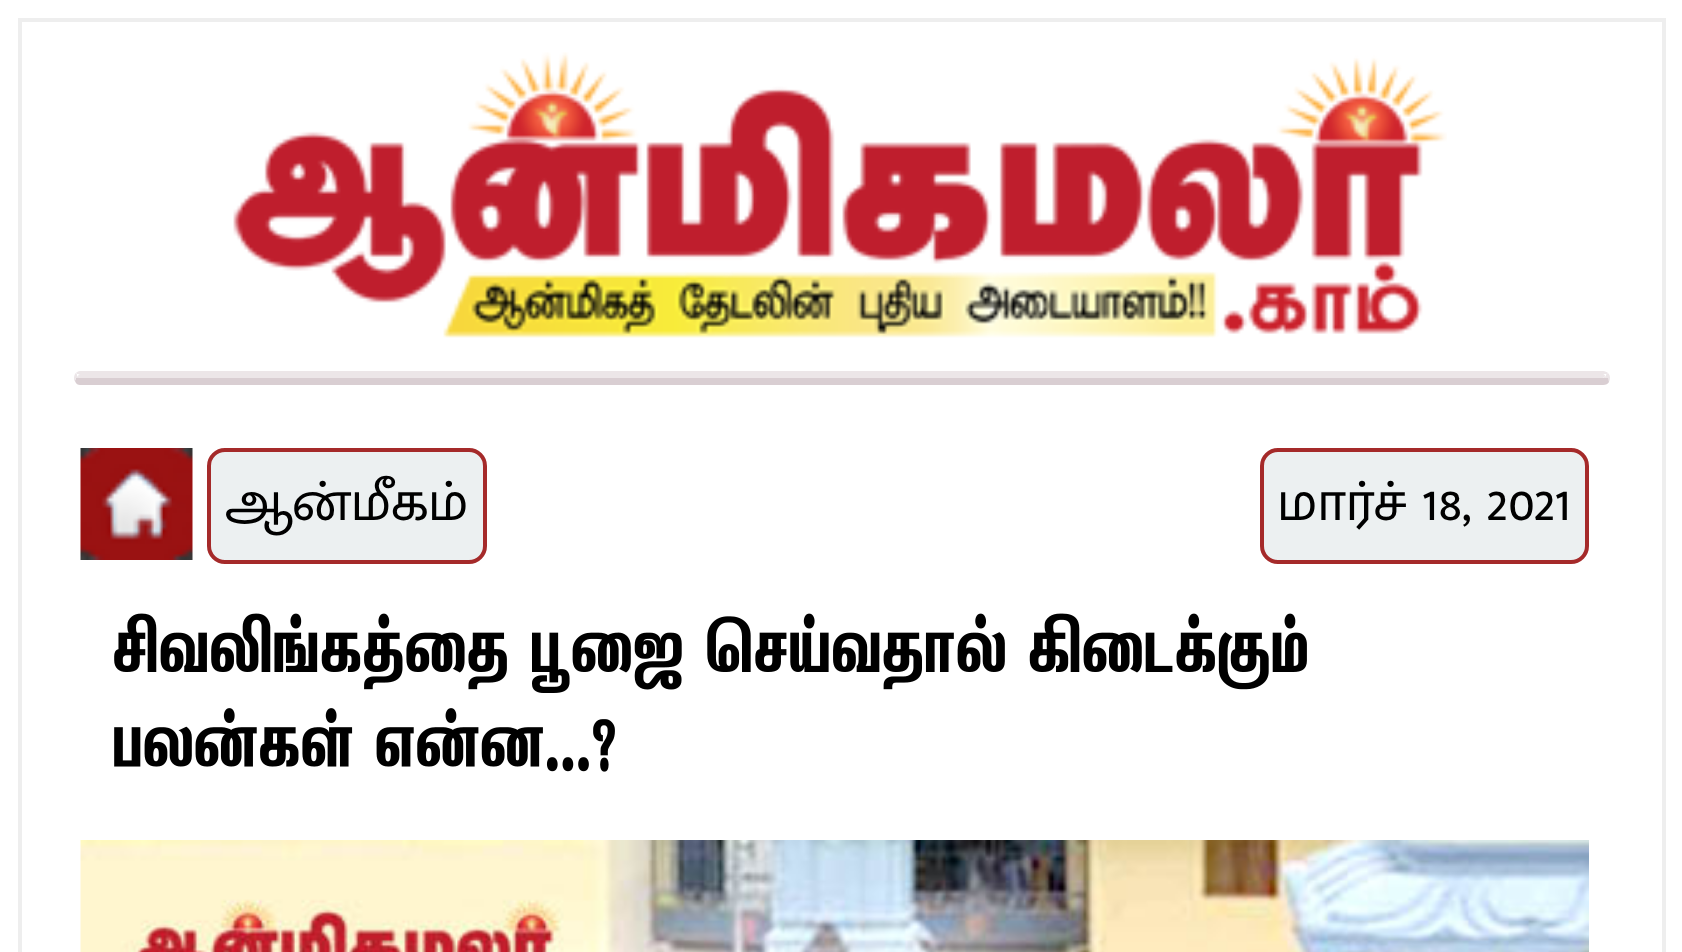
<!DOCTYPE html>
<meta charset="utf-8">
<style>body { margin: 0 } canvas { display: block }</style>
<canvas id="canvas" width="1682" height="952"></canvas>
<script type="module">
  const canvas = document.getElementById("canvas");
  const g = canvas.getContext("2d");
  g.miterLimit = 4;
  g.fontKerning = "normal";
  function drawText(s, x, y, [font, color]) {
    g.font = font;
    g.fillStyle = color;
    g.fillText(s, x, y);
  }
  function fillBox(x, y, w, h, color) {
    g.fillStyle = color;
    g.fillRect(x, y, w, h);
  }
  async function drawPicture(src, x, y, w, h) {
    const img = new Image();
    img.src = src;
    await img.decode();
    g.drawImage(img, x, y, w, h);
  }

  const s1 = ["56px Mukta Malar", "#000000"];

  fillBox(0, 0, 1682, 952, "#FFFFFF");
  g.strokeStyle = "#EEEEEE";
  g.lineWidth = 4;
  g.strokeRect(20, 20, 1644, 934);
  await drawPicture("pic1.png", 233, 52, 1214, 286);
  g.fillStyle = "#ECE6E8";
  g.beginPath();
  g.moveTo(80, 371);
  g.bezierCurveTo(78, 371, 77, 372, 76, 373);
  g.lineTo(77, 374);
  g.lineTo(80, 374);
  g.lineTo(78, 375);
  g.lineTo(80, 378);
  g.lineTo(1603, 378);
  g.lineTo(1605, 376);
  g.bezierCurveTo(1605, 375, 1604, 374, 1603, 374);
  g.lineTo(1606, 374);
  g.lineTo(1606, 375);
  g.lineTo(1608, 373);
  g.bezierCurveTo(1607, 372, 1605, 371, 1603, 371);
  g.closePath();
  g.fill();
  g.beginPath();
  g.moveTo(1608, 373);
  g.bezierCurveTo(1610.5, 375.5, 1610.5, 379, 1609, 382);
  g.lineTo(1607.5, 378);
  g.lineTo(1606, 378);
  g.lineTo(1606, 375);
  g.closePath();
  g.moveTo(1605.5, 375.5);
  g.lineTo(1606, 378);
  g.lineTo(1603, 378);
  g.closePath();
  g.fill("evenodd");
  g.fillStyle = "#D9CED2";
  g.beginPath();
  g.moveTo(80, 385);
  g.lineTo(1603, 385);
  g.bezierCurveTo(1606, 385, 1608, 384, 1609, 382);
  g.lineTo(1608, 378);
  g.lineTo(76, 378);
  g.lineTo(75, 381);
  g.bezierCurveTo(76, 384, 78, 385, 80, 385);
  g.closePath();
  g.fill();
  g.fillStyle = "#ECE6E8";
  g.beginPath();
  g.moveTo(75.5, 373);
  g.bezierCurveTo(74, 375.5, 73.5, 378.5, 74.5, 381.5);
  g.lineTo(76, 378);
  g.lineTo(80.5, 378);
  g.lineTo(78, 375.5);
  g.bezierCurveTo(77.5, 376, 77, 377, 77, 378);
  g.lineTo(77, 374.5);
  g.closePath();
  g.fill();
  await drawPicture("pic2.png", 80, 448, 113, 112);
  g.fillStyle = "#ECF0F1";
  g.beginPath();
  g.roundRect(209, 450, 276, 112, 16);
  g.fill();
  g.strokeStyle = "#A52A2A";
  g.stroke();
  drawText("ஆன்மீகம்", 225, 520, s1);
  g.fillStyle = "#ECF0F1";
  g.beginPath();
  g.roundRect(1262, 450, 325, 112, 16);
  g.fill();
  g.stroke();
  drawText("மார்ச் 18, 2021", 1277, 520, s1);
  await drawPicture("pic3.png", 114, 613, 1193, 80);
  await drawPicture("pic4.png", 114, 708, 501, 64);
  await drawPicture("pic5.png", 80, 840, 1509, 112);
</script>
